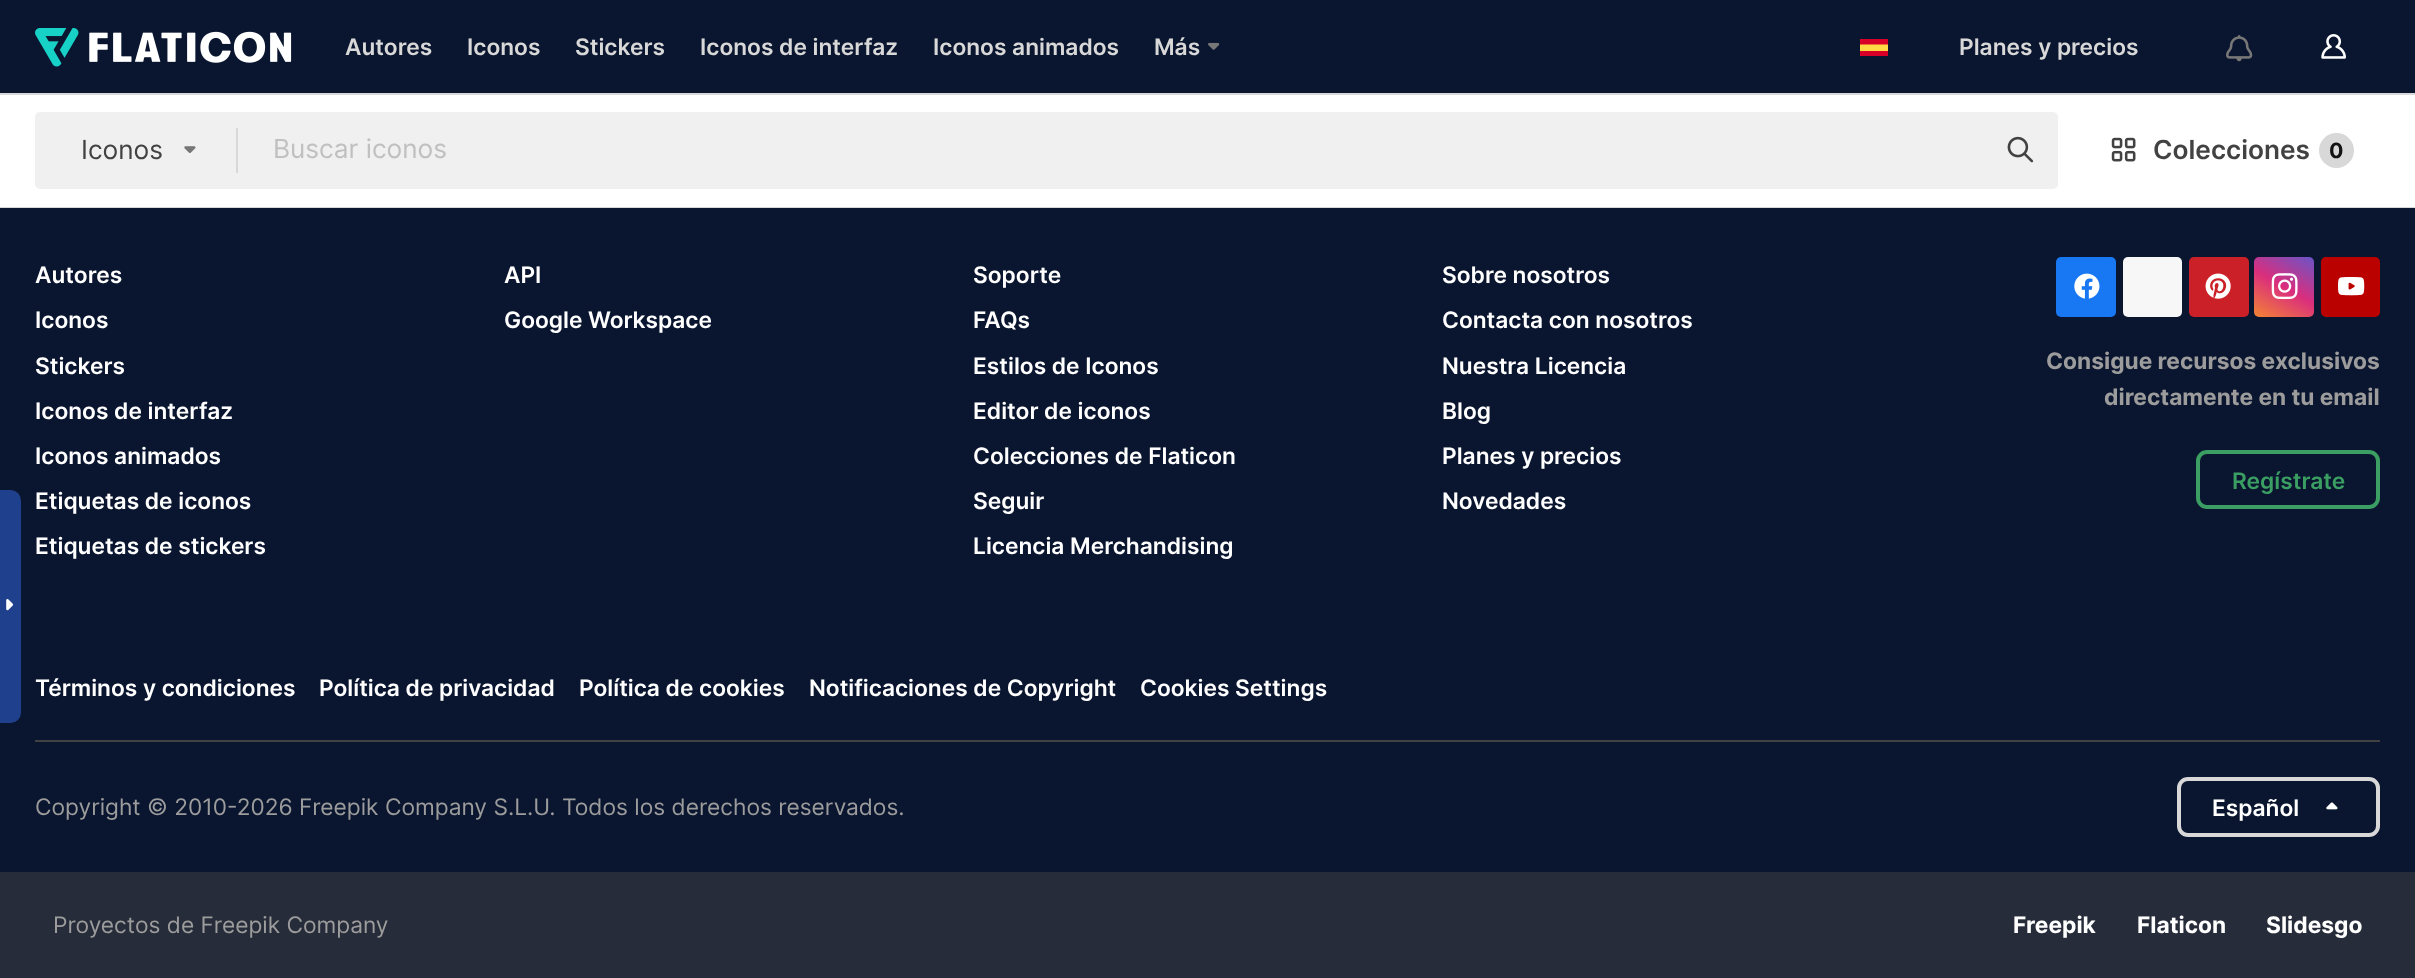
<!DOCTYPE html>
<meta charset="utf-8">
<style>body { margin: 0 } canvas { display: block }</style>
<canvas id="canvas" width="2415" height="978"></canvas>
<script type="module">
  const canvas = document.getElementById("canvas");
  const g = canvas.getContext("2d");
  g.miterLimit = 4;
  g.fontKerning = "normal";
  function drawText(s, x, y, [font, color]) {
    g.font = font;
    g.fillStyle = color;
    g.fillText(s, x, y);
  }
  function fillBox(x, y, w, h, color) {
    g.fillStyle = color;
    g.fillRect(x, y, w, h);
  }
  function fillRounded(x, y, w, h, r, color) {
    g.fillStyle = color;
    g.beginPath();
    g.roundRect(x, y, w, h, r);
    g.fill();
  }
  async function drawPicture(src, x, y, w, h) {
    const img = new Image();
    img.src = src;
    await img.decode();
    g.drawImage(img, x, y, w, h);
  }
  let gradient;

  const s1 = ["600 22.75px Inter", "#D8D8D8"];
  const s2 = ["26.25px Inter", "#424242"];
  const s3 = ["26.25px Inter", "#C0C0C0"];
  const s4 = ["600 26.25px Inter", "#424242"];
  const s5 = ["bold 21px Inter", "#121212"];
  const s6 = ["600 22.75px Inter", "#FFFFFF"];
  const s7 = ["bold 22.75px Inter", "#9C9C9C"];
  const s8 = ["600 22.75px Inter", "#3B9E62"];
  const s9 = ["22.75px Inter", "#9C9C9C"];
  const s10 = ["bold 22.75px Inter", "#FFFFFF"];

  fillBox(0, 0, 2415, 978, "#0A152F");
  g.fillStyle = "#1F408C";
  g.beginPath();
  g.roundRect(0, 490, 21, 233, [0, 10.5, 10.5, 0]);
  g.fill();
  await drawPicture("pic1.png", 6, 599, 7, 12);
  await drawPicture("pic2.png", 35, 28, 257, 39);
  drawText("Autores", 345, 55, s1);
  drawText("Iconos", 467, 55, s1);
  drawText("Stickers", 575, 55, s1);
  drawText("Iconos de interfaz", 700, 55, s1);
  drawText("Iconos animados", 933, 55, s1);
  drawText("Más", 1154, 55, s1);
  await drawPicture("pic3.png", 1208, 42, 12, 8);
  fillBox(1860, 44, 28, 7, "#FFDA44");
  g.save();
  g.beginPath();
  g.rect(1860, 39, 28, 17);
  g.clip();
  g.fillStyle = "#D80027";
  g.beginPath();
  g.moveTo(1860, 38.5);
  g.lineTo(1888, 38.5);
  g.lineTo(1888, 44.5);
  g.lineTo(1860, 44.5);
  g.closePath();
  g.moveTo(1860, 51);
  g.lineTo(1888, 51);
  g.lineTo(1888, 57);
  g.lineTo(1860, 57);
  g.closePath();
  g.fill();
  g.restore();
  drawText("Planes y precios", 1959, 55, s1);
  await drawPicture("pic4.png", 2226, 35, 27, 27);
  await drawPicture("pic5.png", 2321, 34, 25, 25);
  g.strokeStyle = "#D8D8D8";
  g.lineWidth = 2;
  g.strokeRect(-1, 94, 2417, 113);
  fillBox(0, 95, 2415, 112, "#FFFFFF");
  fillRounded(35, 112, 2023, 77, 5, "#F0F0F0");
  drawText("Iconos", 81, 159, s2);
  await drawPicture("pic6.png", 184, 146, 12, 7);
  fillBox(236, 128, 2, 45, "#D8D8D8");
  drawText("Buscar iconos", 273, 158, s3);
  await drawPicture("pic7.png", 2007, 136, 27, 27);
  await drawPicture("pic8.png", 2111, 137, 25, 25);
  drawText("Colecciones", 2153, 159, s4);
  g.fillStyle = "#D8D8D8";
  g.beginPath();
  g.arc(2336.5, 150.5, 17.5, 0, Math.PI * 2);
  g.fill();
  drawText("0", 2329, 158, s5);
  drawText("Autores", 35, 283, s6);
  drawText("Iconos", 35, 328, s6);
  drawText("Stickers", 35, 374, s6);
  drawText("Iconos de interfaz", 35, 419, s6);
  drawText("Iconos animados", 35, 464, s6);
  drawText("Etiquetas de iconos", 35, 509, s6);
  drawText("Etiquetas de stickers", 35, 554, s6);
  drawText("API", 504, 283, s6);
  drawText("Google Workspace", 504, 328, s6);
  drawText("Soporte", 973, 283, s6);
  drawText("FAQs", 973, 328, s6);
  drawText("Estilos de Iconos", 973, 374, s6);
  drawText("Editor de iconos", 973, 419, s6);
  drawText("Colecciones de Flaticon", 973, 464, s6);
  drawText("Seguir", 973, 509, s6);
  drawText("Licencia Merchandising", 973, 554, s6);
  drawText("Sobre nosotros", 1442, 283, s6);
  drawText("Contacta con nosotros", 1442, 328, s6);
  drawText("Nuestra Licencia", 1442, 374, s6);
  drawText("Blog", 1442, 419, s6);
  drawText("Planes y precios", 1442, 464, s6);
  drawText("Novedades", 1442, 509, s6);
  fillRounded(2056, 257, 60, 60, 5, "#1877F2");
  await drawPicture("pic9.png", 2074, 273, 26, 26);
  fillRounded(2123, 257, 59, 60, 5, "#F7F7F7");
  fillRounded(2189, 257, 60, 60, 5, "#CB2027");
  await drawPicture("pic10.png", 2205, 273, 26, 26);
  gradient = g.createLinearGradient(2264, 322, 2304, 252);
  gradient.addColorStop(0, "#F38334");
  gradient.addColorStop(0.5, "#DA2E7D");
  gradient.addColorStop(1, "#6B54C6");
  g.fillStyle = gradient;
  g.beginPath();
  g.roundRect(2254, 257, 60, 60, 5);
  g.fill();
  await drawPicture("pic11.png", 2271, 273, 27, 27);
  fillRounded(2321, 257, 59, 60, 5, "#BB0000");
  await drawPicture("pic12.png", 2338, 277, 27, 19);
  drawText("Consigue recursos exclusivos", 2046, 369, s7);
  drawText("directamente en tu email", 2104, 405, s7);
  g.beginPath();
  g.roundRect(2198, 452, 180, 55, 9);
  g.strokeStyle = "#3B9E62";
  g.lineWidth = 4;
  g.stroke();
  drawText("Regístrate", 2232, 489, s8);
  drawText("Términos y condiciones", 35, 696, s6);
  drawText("Política de privacidad", 319, 696, s6);
  drawText("Política de cookies", 579, 696, s6);
  drawText("Notificaciones de Copyright", 809, 696, s6);
  drawText("Cookies Settings", 1140, 696, s6);
  fillBox(35, 740, 2345, 2, "#424242");
  drawText("Copyright © 2010-2026 Freepik Company S.L.U. Todos los derechos reservados.", 35, 815, s9);
  g.beginPath();
  g.roundRect(2179, 779, 199, 56, 9);
  g.strokeStyle = "#D8D8D8";
  g.stroke();
  drawText("Español", 2212, 816, s6);
  await drawPicture("pic13.png", 2326, 802, 12, 8);
  fillBox(0, 872, 2415, 106, "#262C39");
  drawText("Proyectos de Freepik Company", 53, 933, s9);
  drawText("Freepik", 2013, 933, s10);
  drawText("Flaticon", 2137, 933, s10);
  drawText("Slidesgo", 2266, 933, s10);
</script>
